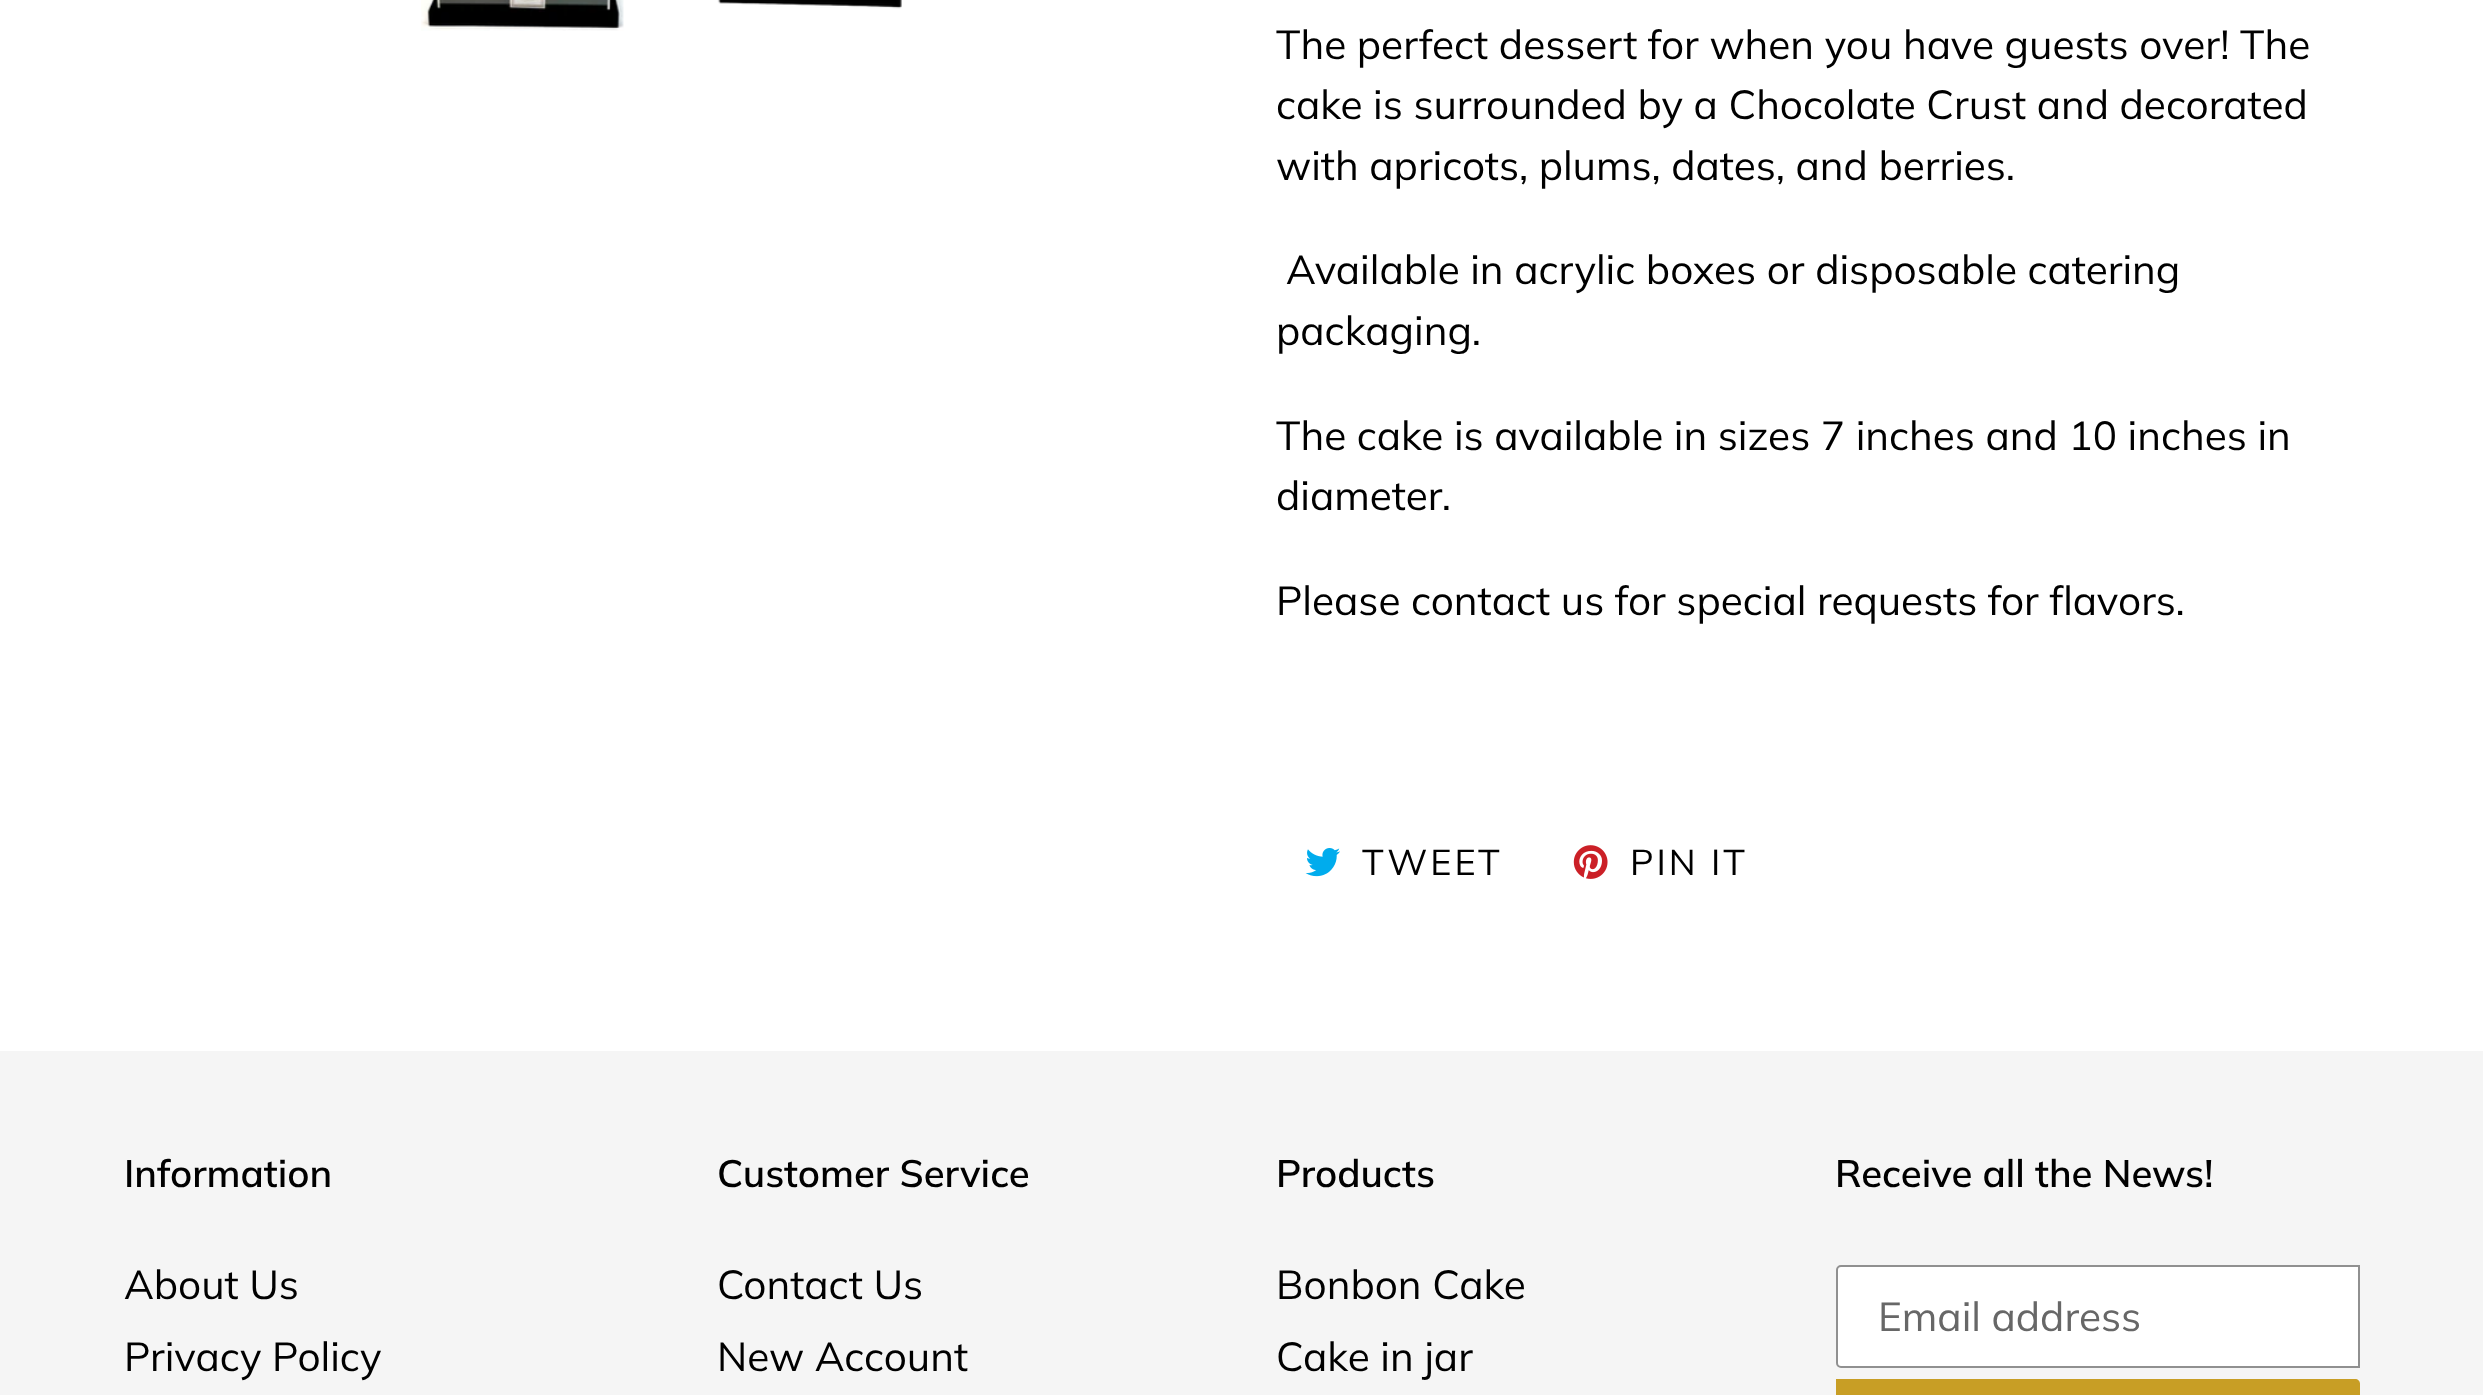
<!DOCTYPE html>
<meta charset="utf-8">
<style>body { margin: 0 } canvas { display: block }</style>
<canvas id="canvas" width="2483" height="1395"></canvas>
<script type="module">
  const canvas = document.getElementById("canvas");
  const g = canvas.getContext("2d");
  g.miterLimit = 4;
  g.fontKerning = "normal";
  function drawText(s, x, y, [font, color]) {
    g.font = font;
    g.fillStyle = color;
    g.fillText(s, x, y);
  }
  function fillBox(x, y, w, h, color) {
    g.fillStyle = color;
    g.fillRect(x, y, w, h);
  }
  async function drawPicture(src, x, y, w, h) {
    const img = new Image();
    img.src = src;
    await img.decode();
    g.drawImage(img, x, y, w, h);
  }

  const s1 = ["40.5px Muli", "#000000"];
  const s2 = ["36px Muli", "#000000"];
  const s3 = ["600 38.25px Muli", "#000000"];
  const s4 = ["40.5px Muli", "#676767"];

  fillBox(0, 0, 2483, 1395, "#FFFFFF");
  await drawPicture("pic1.png", 421, 0, 203, 31);
  await drawPicture("pic2.png", 717, 0, 185, 9);
  drawText("The perfect dessert for when you have guests over! The", 1276, 59, s1);
  drawText("cake is surrounded by a Chocolate Crust and decorated", 1276, 119, s1);
  drawText("with apricots, plums, dates, and berries.", 1276, 180, s1);
  drawText("Available in acrylic boxes or disposable catering", 1286, 284, s1);
  drawText("packaging.", 1276, 345, s1);
  drawText("The cake is available in sizes 7 inches and 10 inches in", 1276, 450, s1);
  drawText("diameter.", 1276, 510, s1);
  drawText("Please contact us for special requests for flavors.", 1276, 615, s1);
  await drawPicture("pic3.png", 1305, 848, 35, 29);
  g.letterSpacing = "3px";
  drawText("TWEET", 1362, 875, s2);
  await drawPicture("pic4.png", 1573, 845, 35, 34);
  drawText("PIN IT", 1630, 875, s2);
  fillBox(0, 1051, 2483, 344, "#F5F5F5");
  g.letterSpacing = "0px";
  drawText("Information", 124, 1187, s3);
  drawText("About Us", 124, 1299, s1);
  drawText("Privacy Policy", 124, 1371, s1);
  drawText("Customer Service", 717, 1187, s3);
  drawText("Contact Us", 717, 1299, s1);
  drawText("New Account", 717, 1371, s1);
  drawText("Products", 1276, 1187, s3);
  drawText("Bonbon Cake", 1276, 1299, s1);
  drawText("Cake in jar", 1276, 1371, s1);
  drawText("Receive all the News!", 1835, 1187, s3);
  g.fillStyle = "#FFFFFF";
  g.beginPath();
  g.roundRect(1837, 1266, 522, 101, [4, 0, 0, 4]);
  g.fill();
  g.strokeStyle = "#909090";
  g.lineWidth = 2;
  g.stroke();
  drawText("Email address", 1878, 1331, s4);
  g.fillStyle = "#C89E25";
  g.beginPath();
  g.moveTo(1836, 1379);
  g.lineTo(2355, 1379);
  g.bezierCurveTo(2358, 1379, 2360, 1381, 2360, 1384);
  g.lineTo(2360, 1395);
  g.bezierCurveTo(2360, 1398, 2358, 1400, 2355, 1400);
  g.lineTo(1836, 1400);
  g.closePath();
  g.fill();
</script>
